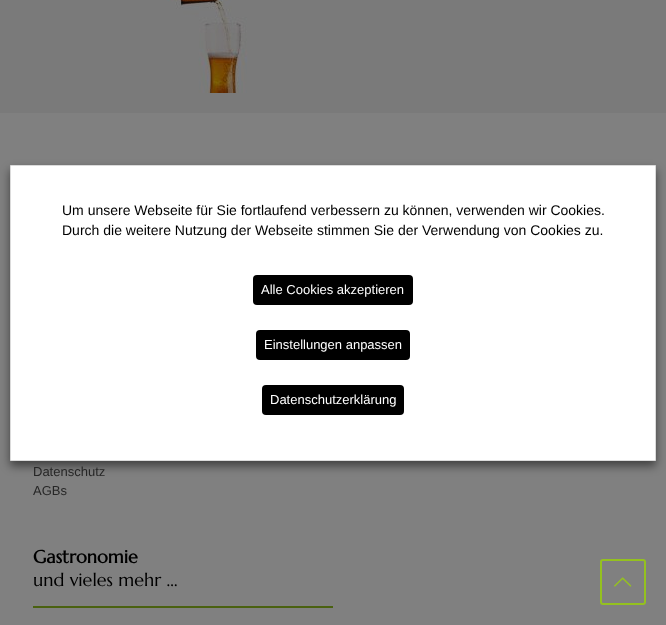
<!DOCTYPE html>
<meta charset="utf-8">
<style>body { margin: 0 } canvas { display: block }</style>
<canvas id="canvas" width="666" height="625"></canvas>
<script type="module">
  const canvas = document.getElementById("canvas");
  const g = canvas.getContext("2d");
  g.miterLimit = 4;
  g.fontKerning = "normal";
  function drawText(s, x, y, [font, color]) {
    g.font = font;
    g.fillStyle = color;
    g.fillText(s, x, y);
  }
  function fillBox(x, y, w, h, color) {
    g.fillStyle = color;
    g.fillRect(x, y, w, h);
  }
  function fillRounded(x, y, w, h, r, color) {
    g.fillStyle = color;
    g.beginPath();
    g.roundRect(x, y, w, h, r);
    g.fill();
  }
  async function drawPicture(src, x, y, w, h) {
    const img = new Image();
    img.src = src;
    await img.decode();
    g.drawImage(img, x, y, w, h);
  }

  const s1 = ["14px Liberation Sans", "#000000"];
  const s2 = ["13px Liberation Sans", "#FFFFFF"];
  const s3 = ["13px Liberation Sans", "#262626"];
  const s4 = ["bold 18px Marcellus", "#000000"];
  const s5 = ["18px Marcellus", "#000000"];

  fillBox(0, 0, 666, 625, "#7A7A7A");
  fillBox(0, 113, 666, 512, "#808080");
  g.fillStyle = "rgba(0, 0, 0, 0.5)";
  g.filter = "blur(5px)";
  g.beginPath();
  g.rect(10, 170, 646, 296);
  g.fill();
  g.filter = "none";
  g.fillStyle = "#FFFFFF";
  g.beginPath();
  g.rect(10.5, 165.5, 645, 295);
  g.fill();
  g.strokeStyle = "#DBDBDB";
  g.stroke();
  drawText("Um unsere Webseite für Sie fortlaufend verbessern zu können, verwenden wir Cookies.", 62, 215, s1);
  drawText("Durch die weitere Nutzung der Webseite stimmen Sie der Verwendung von Cookies zu.", 62, 235, s1);
  fillRounded(253, 275, 160, 30, 4, "#000000");
  drawText("Alle Cookies akzeptieren", 261, 294, s2);
  fillRounded(256, 330, 154, 30, 4, "#000000");
  drawText("Einstellungen anpassen", 264, 349, s2);
  fillRounded(262, 385, 142, 30, 4, "#000000");
  drawText("Datenschutzerklärung", 270, 404, s2);
  await drawPicture("pic1.png", 167, 0, 81, 93);
  drawText("Datenschutz", 33, 476, s3);
  drawText("AGBs", 33, 495, s3);
  drawText("Gastronomie", 33, 563, s4);
  drawText("und vieles mehr …", 33, 586, s5);
  fillBox(33, 606, 300, 2, "#4A6110");
  g.beginPath();
  g.roundRect(601, 560, 44, 44, 2);
  g.strokeStyle = "#94C11F";
  g.lineWidth = 2;
  g.stroke();
  await drawPicture("pic2.png", 614, 577, 18, 10);
</script>
